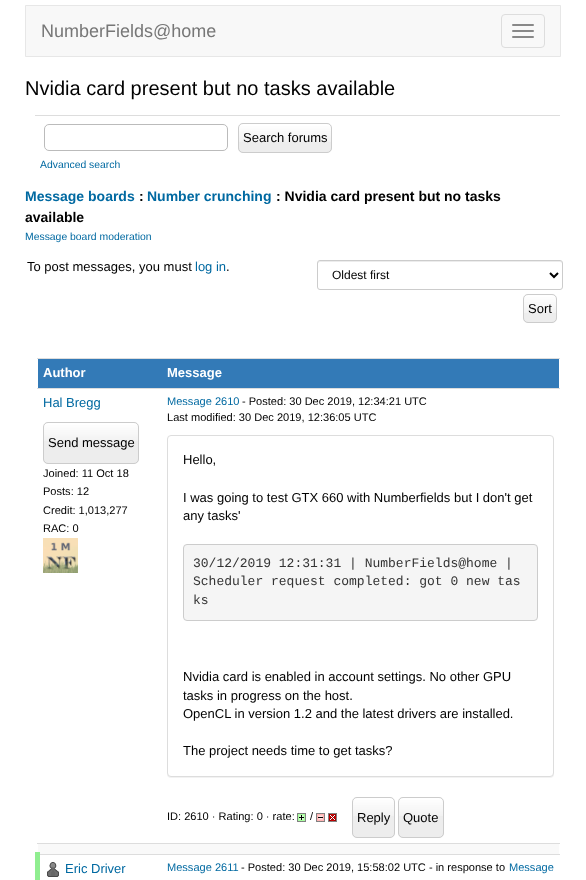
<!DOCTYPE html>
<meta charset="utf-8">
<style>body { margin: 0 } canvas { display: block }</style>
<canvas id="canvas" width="586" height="880"></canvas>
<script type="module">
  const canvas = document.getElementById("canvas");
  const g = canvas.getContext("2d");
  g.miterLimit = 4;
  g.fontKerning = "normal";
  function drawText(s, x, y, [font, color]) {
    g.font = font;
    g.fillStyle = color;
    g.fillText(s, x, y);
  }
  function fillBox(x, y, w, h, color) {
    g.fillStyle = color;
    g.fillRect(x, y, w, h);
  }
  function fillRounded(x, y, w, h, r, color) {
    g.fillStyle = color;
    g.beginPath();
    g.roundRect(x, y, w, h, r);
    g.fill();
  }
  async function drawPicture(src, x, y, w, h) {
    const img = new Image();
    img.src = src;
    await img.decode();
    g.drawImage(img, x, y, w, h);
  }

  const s1 = ["18px Liberation Sans", "#777777"];
  const s2 = ["20px Liberation Sans", "#000000"];
  const s3 = ["13px Liberation Sans", "#000000"];
  const s4 = ["10.4px Liberation Sans", "#0069A1"];
  const s5 = ["bold 14px Liberation Sans", "#0069A1"];
  const s6 = ["bold 14px Liberation Sans", "#000000"];
  const s7 = ["13px Liberation Sans", "#0069A1"];
  const s8 = ["12px Liberation Sans", "#000000"];
  const s9 = ["bold 13px Liberation Sans", "#FFFFFF"];
  const s10 = ["11.05px Liberation Sans", "#000000"];
  const s11 = ["11.05px Liberation Sans", "#0069A1"];
  const s12 = ["13px Liberation Mono", "#333333"];

  fillBox(0, 0, 586, 880, "#FFFFFF");
  g.fillStyle = "#F8F8F8";
  g.beginPath();
  g.rect(25.5, 5.5, 535, 51);
  g.fill();
  g.strokeStyle = "#E7E7E7";
  g.stroke();
  drawText("NumberFields@home", 41, 37, s1);
  g.beginPath();
  g.roundRect(501.5, 14.5, 43, 33, 3.5);
  g.strokeStyle = "#DDDDDD";
  g.stroke();
  fillRounded(512, 24, 22, 2, 1, "#888888");
  fillRounded(512, 30, 22, 2, 1, "#888888");
  fillRounded(512, 36, 22, 2, 1, "#888888");
  drawText("Nvidia card present but no tasks available", 25, 95, s2);
  fillBox(35, 115, 525, 1, "#DDDDDD");
  g.beginPath();
  g.roundRect(44.5, 124.5, 183, 26, 4.5);
  g.strokeStyle = "#BBBBBB";
  g.stroke();
  fillRounded(238, 123, 94, 30, 5, "#EDEDED");
  await drawPicture("pic1.png", 238, 124, 94, 18);
  g.beginPath();
  g.roundRect(238.5, 123.5, 93, 29, 4.5);
  g.strokeStyle = "#CCCCCC";
  g.stroke();
  drawText("Search forums", 243, 142, s3);
  drawText("Advanced search", 40, 168, s4);
  drawText("Message boards", 25, 201, s5);
  drawText(":", 139, 201, s6);
  drawText("Number crunching", 147, 201, s5);
  drawText(": Nvidia card present but no tasks", 276, 201, s6);
  drawText("available", 25, 222, s6);
  drawText("Message board moderation", 25, 240, s4);
  drawText("To post messages, you must", 27, 271, s3);
  drawText("log in", 195, 271, s7);
  drawText(".", 226, 271, s3);
  g.fillStyle = "#ECECEC";
  g.beginPath();
  g.moveTo(320, 262);
  g.lineTo(560, 262);
  g.bezierCurveTo(561, 262, 562, 263, 562, 264);
  g.bezierCurveTo(562, 263, 562, 261, 560, 261);
  g.lineTo(320, 261);
  g.lineTo(318, 262);
  g.lineTo(318, 264);
  g.bezierCurveTo(318, 263, 319, 262, 320, 262);
  g.closePath();
  g.fill();
  g.beginPath();
  g.roundRect(317.5, 260.5, 245, 29, 2.5);
  g.stroke();
  g.beginPath();
  g.moveTo(550, 273);
  g.lineTo(554, 277);
  g.lineTo(558, 273);
  g.strokeStyle = "#000000";
  g.lineWidth = 2;
  g.stroke();
  drawText("Oldest first", 332, 279, s8);
  fillRounded(523, 294, 34, 29, 5, "#EDEDED");
  await drawPicture("pic2.png", 523, 295, 34, 18);
  g.beginPath();
  g.roundRect(523.5, 294.5, 33, 28, 4.5);
  g.strokeStyle = "#CCCCCC";
  g.lineWidth = 1;
  g.stroke();
  drawText("Sort", 528, 313, s3);
  fillBox(38, 359, 521, 29, "#337AB7");
  drawText("Author", 43, 377, s9);
  fillBox(37, 358, 523, 1, "#DDDDDD");
  drawText("Message", 167, 377, s9);
  drawText("Hal Bregg", 43, 407, s7);
  fillRounded(43, 422, 96, 42, 5, "#EDEDED");
  await drawPicture("pic3.png", 43, 423, 96, 18);
  g.beginPath();
  g.roundRect(43.5, 422.5, 95, 41, 4.5);
  g.stroke();
  drawText("Send message", 48, 447, s3);
  drawText("Joined: 11 Oct 18", 43, 477, s10);
  drawText("Posts: 12", 43, 495, s10);
  drawText("Credit: 1,013,277", 43, 514, s10);
  drawText("RAC: 0", 43, 532, s10);
  await drawPicture("pic4.png", 43, 538, 35, 35);
  fillBox(37, 388, 523, 1, "#DDDDDD");
  drawText("Message 2610", 167, 405, s11);
  drawText("- Posted: 30 Dec 2019, 12:34:21 UTC", 242, 405, s10);
  drawText("Last modified: 30 Dec 2019, 12:36:05 UTC", 167, 421, s10);
  g.fillStyle = "rgba(0, 0, 0, 0.05)";
  g.filter = "blur(0.5px)";
  g.beginPath();
  g.roundRect(167, 436, 387, 342, 4);
  g.fill();
  g.filter = "none";
  g.fillStyle = "#FFFFFF";
  g.beginPath();
  g.roundRect(167.5, 435.5, 386, 341, 3.5);
  g.fill();
  g.strokeStyle = "#DDDDDD";
  g.stroke();
  drawText("Hello,", 183, 464, s3);
  drawText("I was going to test GTX 660 with Numberfields but I don't get", 183, 502, s3);
  drawText("any tasks'", 183, 520, s3);
  g.fillStyle = "#F5F5F5";
  g.beginPath();
  g.roundRect(183.5, 544.5, 354, 76, 3.5);
  g.fill();
  g.strokeStyle = "#CCCCCC";
  g.stroke();
  drawText("30/12/2019 12:31:31 | NumberFields@home |", 193, 567, s12);
  drawText("Scheduler request completed: got 0 new tas", 193, 585, s12);
  drawText("ks", 193, 604, s12);
  drawText("Nvidia card is enabled in account settings. No other GPU", 183, 681, s3);
  drawText("tasks in progress on the host.", 183, 700, s3);
  drawText("OpenCL in version 1.2 and the latest drivers are installed.", 183, 718, s3);
  drawText("The project needs time to get tasks?", 183, 755, s3);
  drawText("ID: 2610 · Rating: 0 · rate:", 167, 820, s10);
  await drawPicture("pic5.png", 297, 813, 9, 9);
  drawText("/", 310, 820, s10);
  await drawPicture("pic6.png", 316, 813, 9, 9);
  await drawPicture("pic7.png", 328, 813, 9, 9);
  fillRounded(352, 797, 43, 41, 5, "#EDEDED");
  await drawPicture("pic8.png", 352, 798, 43, 18);
  g.beginPath();
  g.roundRect(352.5, 797.5, 42, 40, 4.5);
  g.stroke();
  drawText("Reply", 357, 822, s3);
  fillRounded(398, 797, 46, 41, 5, "#EDEDED");
  await drawPicture("pic9.png", 398, 798, 46, 18);
  g.beginPath();
  g.roundRect(398.5, 797.5, 45, 40, 4.5);
  g.stroke();
  drawText("Quote", 403, 822, s3);
  fillBox(38, 844, 521, 10, "#F9F9F9");
  fillBox(37, 843, 523, 1, "#DDDDDD");
  fillBox(37, 854, 523, 1, "#DDDDDD");
  fillBox(35, 852, 5, 28, "#90EE90");
  await drawPicture("pic10.png", 47, 862, 12, 15);
  drawText("Eric Driver", 65, 873, s7);
  drawText("Message 2611", 167, 871, s11);
  drawText("- Posted: 30 Dec 2019, 15:58:02 UTC - in response to", 241, 871, s10);
  drawText("Message", 509, 871, s11);
</script>
